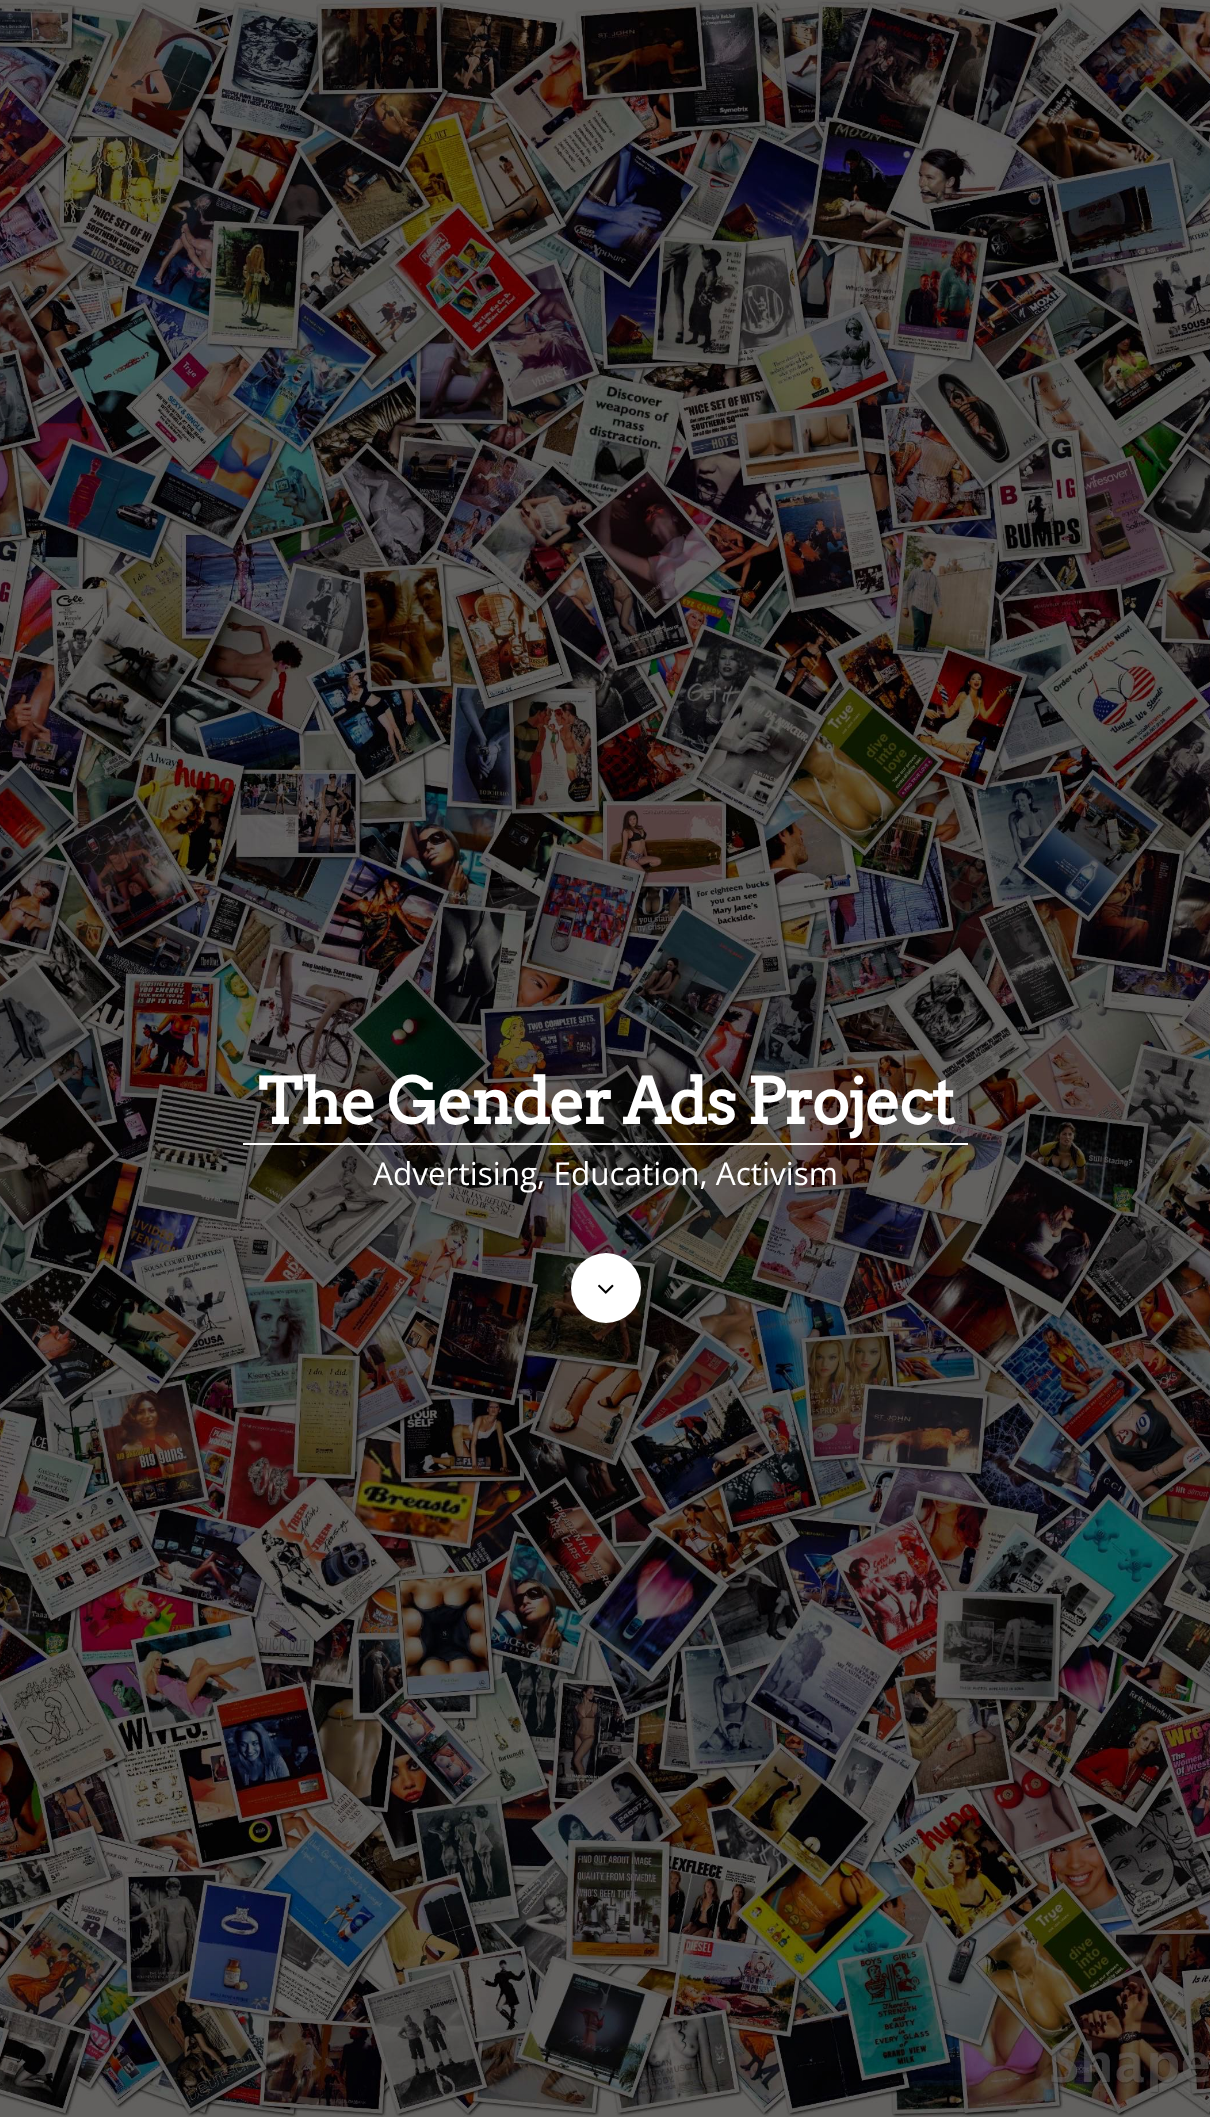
<!DOCTYPE html>
<meta charset="utf-8">
<style>body { margin: 0 } canvas { display: block }</style>
<canvas id="canvas" width="1210" height="2117"></canvas>
<script type="module">
  const canvas = document.getElementById("canvas");
  const g = canvas.getContext("2d");
  g.miterLimit = 4;
  g.fontKerning = "normal";
  function drawText(s, x, y, [font, color]) {
    g.font = font;
    g.fillStyle = color;
    g.fillText(s, x, y);
  }
  function fillBox(x, y, w, h, color) {
    g.fillStyle = color;
    g.fillRect(x, y, w, h);
  }
  async function drawPicture(src, x, y, w, h) {
    const img = new Image();
    img.src = src;
    await img.decode();
    g.drawImage(img, x, y, w, h);
  }

  const s1 = ["bold 63px Arvo", "#FFFFFF"];
  const s2 = ["31.5px Open Sans", "#FFFFFF"];

  fillBox(0, 0, 1210, 2117, "#FFFFFF");
  await drawPicture("pic1.png", 0, 0, 1210, 2117);
  fillBox(243, 1143, 725, 2, "#FFFFFF");
  g.letterSpacing = "-1.75px";
  drawText("The Gender Ads Project", 258, 1124, s1);
  g.letterSpacing = "0px";
  drawText("Advertising, Education, Activism", 373, 1185, s2);
  g.beginPath();
  g.arc(606, 1288, 35, 0, Math.PI * 2);
  g.fill();
  await drawPicture("pic2.png", 598, 1284, 16, 10);
</script>
